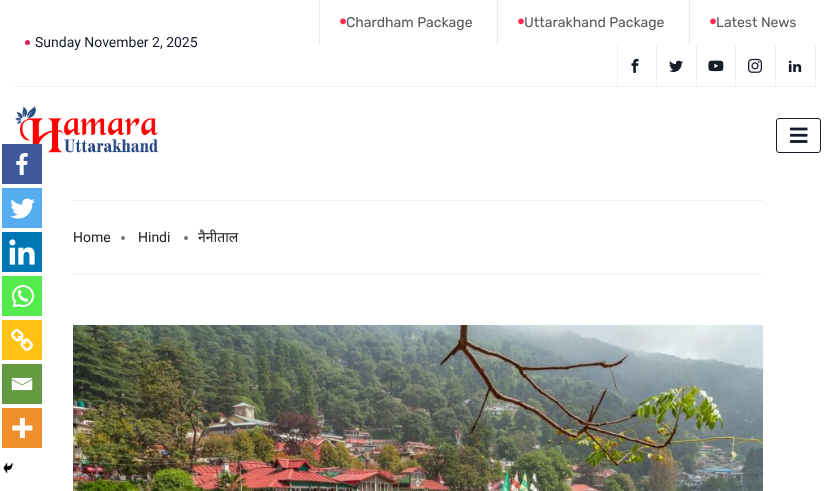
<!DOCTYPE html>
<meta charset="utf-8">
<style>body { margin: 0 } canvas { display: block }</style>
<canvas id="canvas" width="836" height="491"></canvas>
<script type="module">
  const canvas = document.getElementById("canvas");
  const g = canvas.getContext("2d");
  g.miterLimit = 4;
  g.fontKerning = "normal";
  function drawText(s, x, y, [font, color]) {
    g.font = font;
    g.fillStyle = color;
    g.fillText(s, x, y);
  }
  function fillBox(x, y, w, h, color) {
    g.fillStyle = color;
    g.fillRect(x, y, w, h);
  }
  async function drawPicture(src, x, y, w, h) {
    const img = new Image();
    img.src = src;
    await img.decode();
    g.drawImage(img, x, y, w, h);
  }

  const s1 = ["14px Rubik", "#54595F"];
  const s2 = ["14px Roboto", "#161B2A"];
  const s3 = ["14px Roboto", "#202020"];
  const s4 = ["14px Noto Sans", "#202020"];

  fillBox(0, 0, 836, 491, "#FFFFFF");
  fillBox(319, 0, 1, 44, "#E9E8EF");
  await drawPicture("pic1.png", 340, 18, 6, 7);
  drawText("Chardham Package", 346, 27, s1);
  fillBox(497, 0, 1, 44, "#E9E8EF");
  await drawPicture("pic1.png", 518, 18, 6, 7);
  drawText("Uttarakhand Package", 524, 27, s1);
  fillBox(689, 0, 1, 44, "#E9E8EF");
  await drawPicture("pic1.png", 710, 18, 6, 7);
  drawText("Latest News", 716, 27, s1);
  fillBox(815, 44, 1, 42, "#F0F0F0");
  fillBox(656, 44, 1, 42, "#F0F0F0");
  fillBox(617, 44, 1, 42, "#F0F0F0");
  await drawPicture("pic2.png", 631, 58, 8, 15);
  fillBox(696, 44, 1, 42, "#F0F0F0");
  await drawPicture("pic3.png", 669, 60, 14, 12);
  fillBox(735, 44, 1, 42, "#F0F0F0");
  await drawPicture("pic4.png", 708, 60, 16, 12);
  fillBox(775, 44, 1, 42, "#F0F0F0");
  await drawPicture("pic5.png", 748, 58, 14, 15);
  await drawPicture("pic6.png", 788, 60, 14, 12);
  fillBox(15, 86, 801, 1, "#F0F0F0");
  g.fillStyle = "#E91E63";
  g.beginPath();
  g.arc(27.5, 42.5, 2.5, 0, Math.PI * 2);
  g.fill();
  drawText("Sunday November 2, 2025", 35, 47, s2);
  await drawPicture("pic7.png", 15, 106, 143, 47);
  g.beginPath();
  g.roundRect(776.5, 118.5, 44, 34, 2.5);
  g.strokeStyle = "#161B2A";
  g.stroke();
  await drawPicture("pic8.png", 790, 127, 18, 16);
  fillBox(2, 144, 40, 40, "#3C589A");
  await drawPicture("pic9.png", 16, 153, 12, 22);
  fillBox(2, 188, 40, 40, "#55ACEE");
  await drawPicture("pic10.png", 10, 198, 25, 21);
  fillBox(2, 232, 40, 40, "#0077B5");
  await drawPicture("pic11.png", 9, 239, 26, 26);
  fillBox(2, 276, 40, 40, "#55EB4C");
  await drawPicture("pic12.png", 12, 285, 22, 23);
  fillBox(2, 320, 40, 40, "#FFC112");
  await drawPicture("pic13.png", 11, 329, 22, 22);
  fillBox(2, 364, 40, 40, "#649A3F");
  await drawPicture("pic14.png", 11, 377, 22, 14);
  fillBox(2, 408, 40, 40, "#EE8E2D");
  await drawPicture("pic15.png", 12, 418, 21, 20);
  await drawPicture("pic16.png", 3, 462, 10, 12);
  await drawPicture("pic17.png", 73, 325, 690, 166);
  fillBox(73, 200, 690, 1, "#F0F0F0");
  fillBox(73, 274, 690, 1, "#F0F0F0");
  drawText("Home", 73, 242, s3);
  g.fillStyle = "#72757B";
  g.beginPath();
  g.arc(123, 238, 2, 0, Math.PI * 2);
  g.fill();
  drawText("Hindi", 138, 242, s3);
  g.fillStyle = "#72757B";
  g.beginPath();
  g.arc(186, 238, 2, 0, Math.PI * 2);
  g.fill();
  drawText("नैनीताल", 198, 242, s4);
</script>
